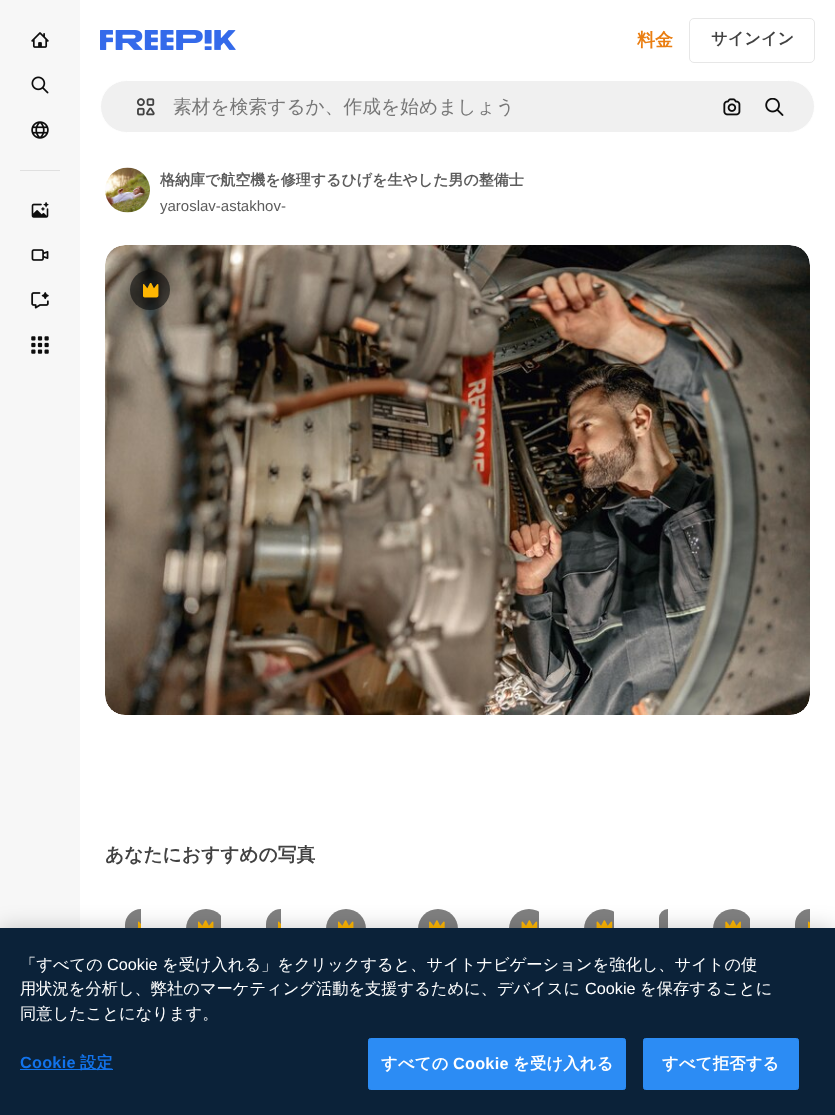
<!DOCTYPE html>
<meta charset="utf-8">
<style>body { margin: 0 } canvas { display: block }</style>
<canvas id="canvas" width="835" height="1115"></canvas>
<script type="module">
  const canvas = document.getElementById("canvas");
  const g = canvas.getContext("2d");
  g.miterLimit = 4;
  g.fontKerning = "normal";
  function drawText(s, x, y, [font, color]) {
    g.font = font;
    g.fillStyle = color;
    g.fillText(s, x, y);
  }
  function fillBox(x, y, w, h, color) {
    g.fillStyle = color;
    g.fillRect(x, y, w, h);
  }
  async function drawPicture(src, x, y, w, h) {
    const img = new Image();
    img.src = src;
    await img.decode();
    g.drawImage(img, x, y, w, h);
  }

  const s1 = ["bold 18px WenQuanYi Zen Hei", "#EA7E11"];
  const s2 = ["bold 16.25px WenQuanYi Zen Hei", "#424242"];
  const s3 = ["500 18.75px WenQuanYi Zen Hei", "#777777"];
  const s4 = ["bold 15px WenQuanYi Zen Hei", "#5C5C5C"];
  const s5 = ["15px Liberation Sans", "#5C5C5C"];
  const s6 = ["bold 18.75px WenQuanYi Zen Hei", "#424242"];
  const s7 = ["500 16.25px WenQuanYi Zen Hei", "#FFFFFF"];
  const s8 = ["16.25px Liberation Sans", "#FFFFFF"];
  const s9 = ["bold 16.25px Liberation Sans", "#1273EB"];
  const s10 = ["bold 16.25px WenQuanYi Zen Hei", "#1273EB"];
  const s11 = ["bold 16.25px WenQuanYi Zen Hei", "#FFFFFF"];
  const s12 = ["bold 16.25px Liberation Sans", "#FFFFFF"];

  fillBox(0, 0, 835, 1115, "#FFFFFF");
  fillBox(0, 0, 80, 928, "#F7F7F7");
  await drawPicture("pic1.png", 31, 32, 18, 16);
  await drawPicture("pic2.png", 31, 76, 18, 18);
  await drawPicture("pic3.png", 31, 121, 18, 18);
  fillBox(20, 170, 40, 1, "#E0E0E0");
  await drawPicture("pic4.png", 31, 202, 18, 16);
  await drawPicture("pic5.png", 31, 249, 18, 12);
  await drawPicture("pic6.png", 31, 292, 18, 17);
  await drawPicture("pic7.png", 31, 336, 18, 18);
  await drawPicture("pic8.png", 100, 30, 136, 20);
  drawText("料金", 637, 46, s1);
  g.beginPath();
  g.roundRect(689.5, 18.5, 125, 44, 4.5);
  g.strokeStyle = "#E7E7E7";
  g.stroke();
  drawText("サインイン", 711, 44, s2);
  g.fillStyle = "#F0F0F0";
  g.beginPath();
  g.roundRect(100.5, 80.5, 714, 52, 26);
  g.fill();
  g.strokeStyle = "#FFFFFF";
  g.stroke();
  await drawPicture("pic9.png", 136, 98, 19, 18);
  drawText("素材を検索するか、作成を始めましょう", 173, 113, s3);
  await drawPicture("pic10.png", 723, 98, 18, 18);
  await drawPicture("pic11.png", 765, 98, 19, 18);
  await drawPicture("pic12.png", 105, 167, 45, 46);
  drawText("格納庫で航空機を修理するひげを生やした男の整備士", 160, 185, s4);
  drawText("yaroslav-astakhov-", 160, 211, s5);
  await drawPicture("pic13.png", 105, 245, 705, 470);
  g.fillStyle = "rgba(13, 13, 13, 0.6)";
  g.beginPath();
  g.arc(150, 290, 20, 0, Math.PI * 2);
  g.fill();
  await drawPicture("pic14.png", 143, 283, 16, 15);
  drawText("あなたにおすすめの写真", 105, 861, s6);
  g.fillStyle = "#808080";
  g.beginPath();
  g.roundRect(125, 909, 16, 40, [20, 0, 0, 20]);
  g.fill();
  await drawPicture("pic15.png", 138, 921, 3, 7);
  g.save();
  g.beginPath();
  g.roundRect(166, 889, 55, 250, 20);
  g.clip();
  g.beginPath();
  g.arc(206, 929, 20, 0, Math.PI * 2);
  g.fill();
  g.restore();
  await drawPicture("pic16.png", 198, 920, 16, 8);
  g.beginPath();
  g.roundRect(266, 909, 15, 40, [20, 0, 0, 20]);
  g.fill();
  await drawPicture("pic15.png", 278, 921, 3, 7);
  g.beginPath();
  g.arc(346, 929, 20, 0, Math.PI * 2);
  g.fill();
  await drawPicture("pic16.png", 338, 920, 16, 8);
  g.beginPath();
  g.arc(438, 929, 20, 0, Math.PI * 2);
  g.fill();
  await drawPicture("pic17.png", 429, 920, 16, 8);
  g.save();
  g.beginPath();
  g.roundRect(489, 889, 50, 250, 20);
  g.clip();
  g.beginPath();
  g.arc(529, 929, 20, 0, Math.PI * 2);
  g.fill();
  g.restore();
  await drawPicture("pic18.png", 521, 920, 17, 8);
  g.save();
  g.beginPath();
  g.roundRect(564, 889, 50, 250, 20);
  g.clip();
  g.beginPath();
  g.arc(604, 929, 20, 0, Math.PI * 2);
  g.fill();
  g.restore();
  await drawPicture("pic18.png", 596, 920, 17, 8);
  g.beginPath();
  g.roundRect(659, 909, 9, 40, [20, 0, 0, 20]);
  g.fill();
  g.save();
  g.beginPath();
  g.roundRect(693, 889, 57, 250, 20);
  g.clip();
  g.beginPath();
  g.arc(733, 929, 20, 0, Math.PI * 2);
  g.fill();
  g.restore();
  await drawPicture("pic19.png", 725, 920, 16, 8);
  g.beginPath();
  g.roundRect(795, 909, 15, 40, [20, 0, 0, 20]);
  g.fill();
  await drawPicture("pic20.png", 808, 921, 2, 7);
  g.fillStyle = "rgba(0, 0, 0, 0.2)";
  g.filter = "blur(11px)";
  g.beginPath();
  g.rect(0, 928, 835, 187);
  g.fill();
  g.filter = "none";
  fillBox(0, 928, 835, 187, "#0B2239");
  drawText("「すべての", 20, 970, s7);
  drawText("Cookie", 107, 970, s8);
  drawText("を受け入れる」をクリックすると、サイトナビゲーションを強化し、サイトの使", 162, 970, s7);
  drawText("用状況を分析し、弊社のマーケティング活動を支援するために、デバイスに", 20, 994, s7);
  drawText("Cookie", 585, 994, s8);
  drawText("を保存することに", 640, 994, s7);
  drawText("同意したことになります。", 20, 1019, s7);
  g.letterSpacing = "0.25px";
  drawText("Cookie", 20, 1068, s9);
  fillBox(20, 1069, 93, 1, "#1273EB");
  drawText("設定", 80, 1068, s10);
  g.fillStyle = "#2C8CF4";
  g.beginPath();
  g.roundRect(368.5, 1038.5, 257, 51, 2);
  g.fill();
  g.strokeStyle = "#2C8CF4";
  g.stroke();
  drawText("すべての", 381, 1069, s11);
  drawText("Cookie", 453, 1069, s12);
  drawText("を受け入れる", 513, 1069, s11);
  g.fillStyle = "#2C8CF4";
  g.beginPath();
  g.roundRect(643.5, 1038.5, 155, 51, 2);
  g.fill();
  g.stroke();
  drawText("すべて拒否する", 662, 1069, s11);
</script>
